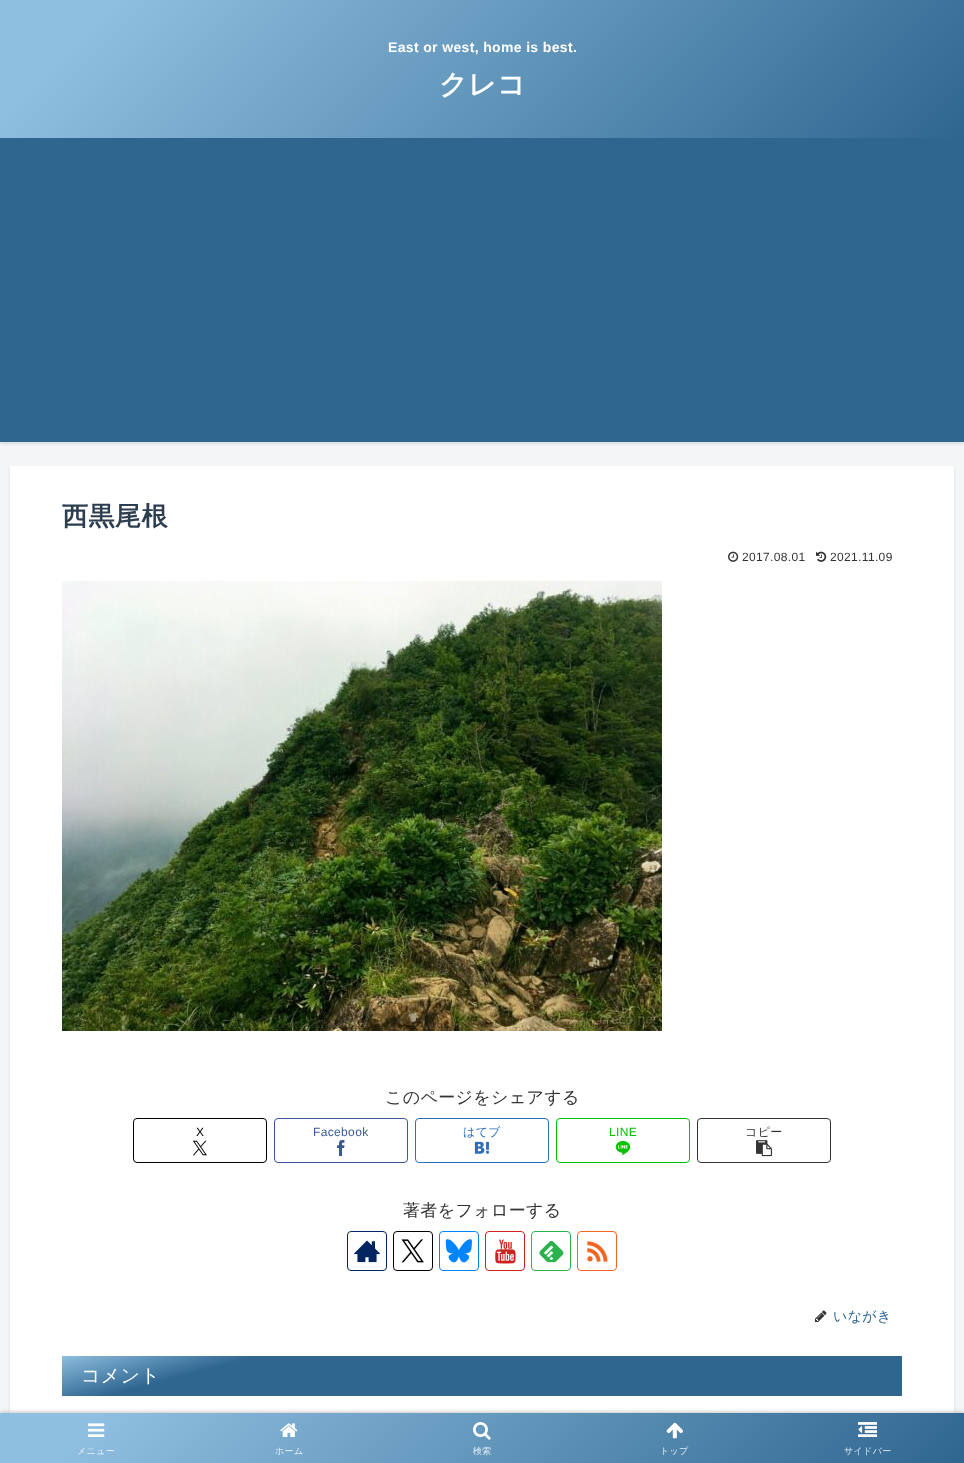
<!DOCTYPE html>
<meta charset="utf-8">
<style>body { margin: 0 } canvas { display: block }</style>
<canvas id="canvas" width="964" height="1463"></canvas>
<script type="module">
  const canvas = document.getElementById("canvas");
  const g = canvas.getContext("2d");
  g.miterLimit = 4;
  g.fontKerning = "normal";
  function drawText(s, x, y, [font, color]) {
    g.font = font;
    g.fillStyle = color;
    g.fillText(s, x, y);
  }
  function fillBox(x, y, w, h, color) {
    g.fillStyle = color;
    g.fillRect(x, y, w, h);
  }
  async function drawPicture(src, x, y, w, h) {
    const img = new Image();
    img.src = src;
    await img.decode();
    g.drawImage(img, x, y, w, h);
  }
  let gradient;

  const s1 = ["bold 14px Liberation Sans", "#FFFFFF"];
  const s2 = ["bold 28px WenQuanYi Zen Hei", "#FFFFFF"];
  const s3 = ["bold 26px WenQuanYi Zen Hei", "#2C3E50"];
  const s4 = ["12px Liberation Sans", "#333333"];
  const s5 = ["500 17px WenQuanYi Zen Hei", "#333333"];
  const s6 = ["12px Liberation Sans", "#000000"];
  const s7 = ["12px Liberation Sans", "#3B5998"];
  const s8 = ["500 12px WenQuanYi Zen Hei", "#2C6EBD"];
  const s9 = ["12px Liberation Sans", "#00C300"];
  const s10 = ["500 12px WenQuanYi Zen Hei", "#333333"];
  const s11 = ["500 14px WenQuanYi Zen Hei", "#2F6690"];
  const s12 = ["500 19px WenQuanYi Zen Hei", "#FFFFFF"];
  const s13 = ["500 9px WenQuanYi Zen Hei", "#E8F2F8"];
  const s14 = ["500 9px WenQuanYi Zen Hei", "#E0EAF1"];
  const s15 = ["500 9px WenQuanYi Zen Hei", "#D8E3EB"];

  fillBox(0, 0, 964, 1463, "#F4F5F7");
  g.fillStyle = "rgba(0, 0, 0, 0.1)";
  g.filter = "blur(1.5px)";
  g.beginPath();
  g.rect(0, 2, 964, 442);
  g.fill();
  g.filter = "none";
  fillBox(0, 138, 964, 304, "#2F6690");
  gradient = g.createLinearGradient(206, -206, 758, 345);
  gradient.addColorStop(0.1, "#8FBFE0");
  gradient.addColorStop(1, "#2F6690");
  g.fillStyle = gradient;
  g.fillRect(0, 0, 964, 138);
  g.letterSpacing = "0.35px";
  drawText("East or west, home is best.", 388, 52, s1);
  drawText("クレコ", 439, 94, s2);
  g.fillStyle = "rgba(0, 0, 0, 0.1)";
  g.filter = "blur(1.5px)";
  g.beginPath();
  g.rect(10, 468, 944, 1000);
  g.fill();
  g.filter = "none";
  fillBox(10, 466, 944, 947, "#FFFFFF");
  g.letterSpacing = "0.5px";
  drawText("西黒尾根", 62, 525, s3);
  await drawPicture("pic1.png", 728, 551, 11, 11);
  g.letterSpacing = "0.35px";
  drawText("2017.08.01", 742, 561, s4);
  await drawPicture("pic2.png", 816, 551, 11, 11);
  drawText("2021.11.09", 830, 561, s4);
  await drawPicture("pic3.png", 62, 581, 600, 450);
  drawText("このページをシェアする", 385, 1103, s5);
  g.beginPath();
  g.roundRect(133.5, 1118.5, 133, 44, 3.5);
  g.strokeStyle = "#000000";
  g.stroke();
  drawText("X", 196, 1136, s6);
  await drawPicture("pic4.png", 192, 1140, 15, 16);
  g.beginPath();
  g.roundRect(274.5, 1118.5, 133, 44, 3.5);
  g.strokeStyle = "#3B5998";
  g.stroke();
  drawText("Facebook", 313, 1136, s7);
  await drawPicture("pic5.png", 337, 1140, 8, 16);
  g.beginPath();
  g.roundRect(415.5, 1118.5, 133, 44, 3.5);
  g.strokeStyle = "#2C6EBD";
  g.stroke();
  drawText("はてブ", 463, 1136, s8);
  await drawPicture("pic6.png", 474, 1141, 16, 13);
  g.beginPath();
  g.roundRect(556.5, 1118.5, 133, 44, 3.5);
  g.strokeStyle = "#00C300";
  g.stroke();
  drawText("LINE", 609, 1136, s9);
  await drawPicture("pic7.png", 615, 1141, 16, 14);
  g.beginPath();
  g.roundRect(697.5, 1118.5, 133, 44, 3.5);
  g.strokeStyle = "#333333";
  g.stroke();
  drawText("コピー", 745, 1136, s10);
  await drawPicture("pic8.png", 756, 1140, 16, 17);
  drawText("著者をフォローする", 403, 1216, s5);
  g.beginPath();
  g.roundRect(347.5, 1231.5, 39, 39, 3.5);
  g.strokeStyle = "#002561";
  g.stroke();
  await drawPicture("pic9.png", 354, 1240, 26, 23);
  g.beginPath();
  g.roundRect(393.5, 1231.5, 39, 39, 3.5);
  g.strokeStyle = "#000000";
  g.stroke();
  await drawPicture("pic10.png", 401, 1239, 23, 24);
  g.beginPath();
  g.roundRect(439.5, 1231.5, 39, 39, 3.5);
  g.strokeStyle = "#0085FF";
  g.stroke();
  await drawPicture("pic11.png", 445, 1239, 27, 24);
  g.beginPath();
  g.roundRect(485.5, 1231.5, 39, 39, 3.5);
  g.strokeStyle = "#CD201F";
  g.stroke();
  await drawPicture("pic12.png", 495, 1239, 21, 25);
  g.beginPath();
  g.roundRect(531.5, 1231.5, 39, 39, 3.5);
  g.strokeStyle = "#2BB24C";
  g.stroke();
  await drawPicture("pic13.png", 539, 1240, 25, 23);
  g.beginPath();
  g.roundRect(577.5, 1231.5, 39, 39, 3.5);
  g.strokeStyle = "#F26522";
  g.stroke();
  await drawPicture("pic14.png", 587, 1241, 21, 21);
  await drawPicture("pic15.png", 815, 1310, 12, 12);
  drawText("いながき", 833, 1321, s11);
  gradient = g.createLinearGradient(449, 1252, 515, 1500);
  gradient.addColorStop(0, "#8FBFE0");
  gradient.addColorStop(0.2, "#2F6690");
  g.fillStyle = gradient;
  g.fillRect(62, 1356, 840, 40);
  drawText("コメント", 81, 1382, s12);
  g.fillStyle = "#A9A9A9";
  g.filter = "blur(2.5px)";
  g.beginPath();
  g.rect(0, 1413, 964, 50);
  g.fill();
  g.filter = "none";
  gradient = g.createLinearGradient(228, 1185, 736, 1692);
  gradient.addColorStop(0.1, "#8FBFE0");
  gradient.addColorStop(1, "#2F6690");
  g.fillStyle = gradient;
  g.fillRect(0, 1413, 964, 50);
  await drawPicture("pic16.png", 88, 1423, 17, 14);
  drawText("メニュー", 77, 1454, s13);
  await drawPicture("pic17.png", 280, 1423, 18, 14);
  drawText("ホーム", 275, 1454, s13);
  await drawPicture("pic18.png", 473, 1422, 18, 18);
  drawText("検索", 473, 1454, s14);
  await drawPicture("pic19.png", 666, 1422, 17, 17);
  drawText("トップ", 660, 1454, s14);
  await drawPicture("pic20.png", 858, 1422, 19, 15);
  drawText("サイドバー", 844, 1454, s15);
</script>
